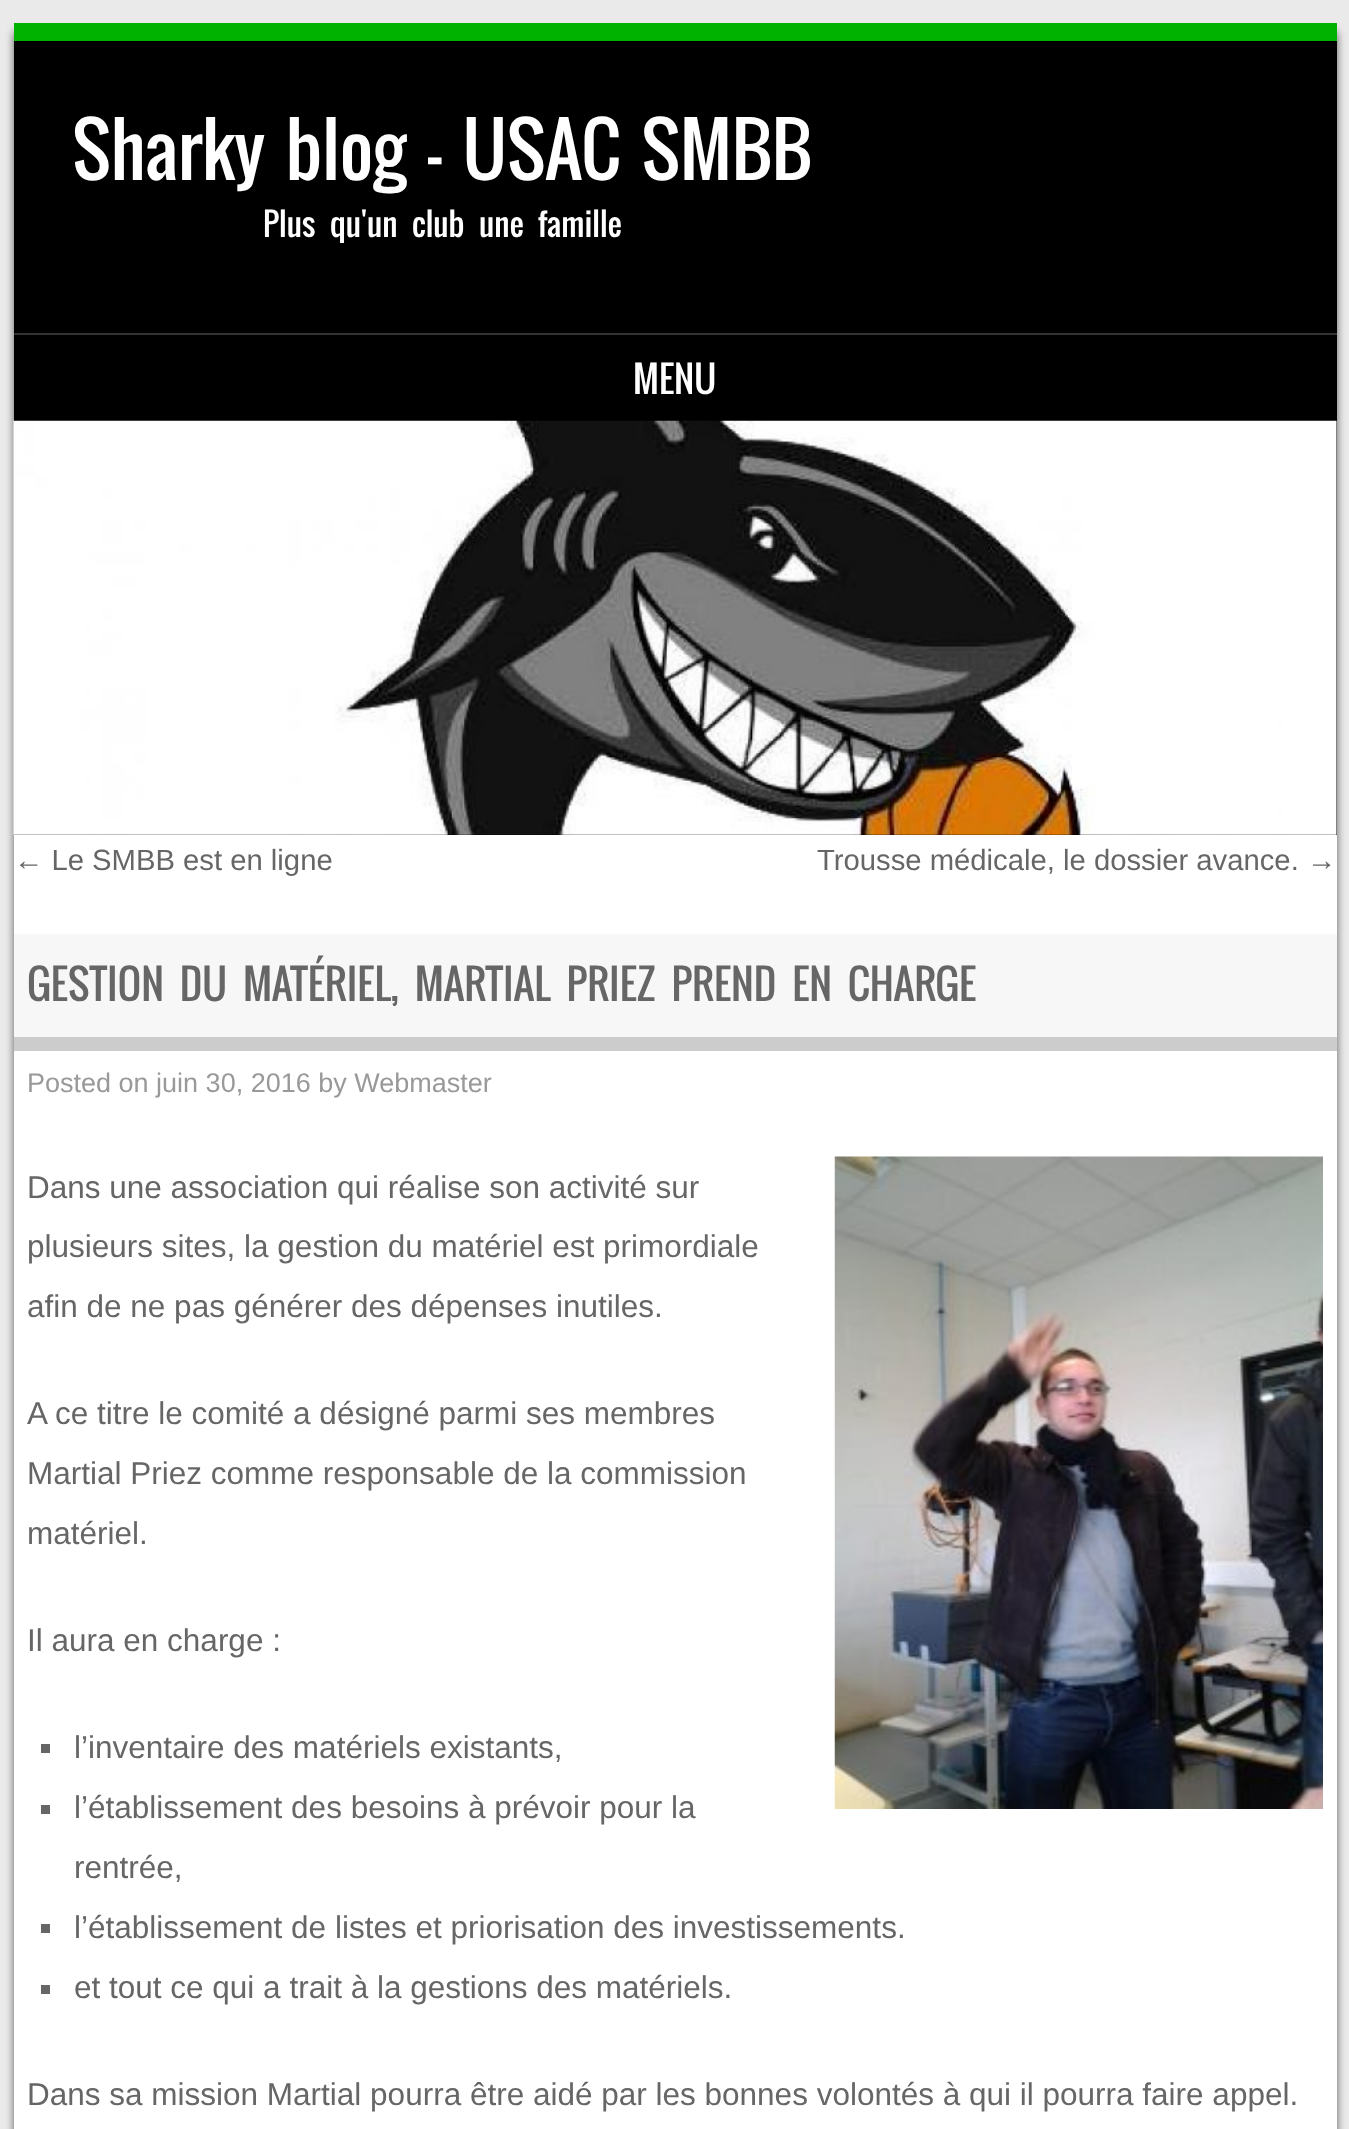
<!DOCTYPE html>
<meta charset="utf-8">
<style>body { margin: 0 } canvas { display: block }</style>
<canvas id="canvas" width="1349" height="2129"></canvas>
<script type="module">
  const canvas = document.getElementById("canvas");
  const g = canvas.getContext("2d");
  g.miterLimit = 4;
  g.fontKerning = "normal";
  function drawText(s, x, y, [font, color]) {
    g.font = font;
    g.fillStyle = color;
    g.fillText(s, x, y);
  }
  function fillBox(x, y, w, h, color) {
    g.fillStyle = color;
    g.fillRect(x, y, w, h);
  }
  async function drawPicture(src, x, y, w, h) {
    const img = new Image();
    img.src = src;
    await img.decode();
    g.drawImage(img, x, y, w, h);
  }

  const s1 = ["72px Oswald", "#FFFFFF"];
  const s2 = ["31.5px Oswald", "#FFFFFF"];
  const s3 = ["36px Oswald", "#FFFFFF"];
  const s4 = ["29.25px Liberation Sans", "#666666"];
  const s5 = ["40.5px Oswald", "#666666"];
  const s6 = ["27px Liberation Sans", "#999999"];
  const s7 = ["31.5px Liberation Sans", "#666666"];

  fillBox(0, 0, 1349, 2129, "#EAEAEA");
  g.fillStyle = "rgba(0, 0, 0, 0.6)";
  g.filter = "blur(4.5px)";
  g.beginPath();
  g.rect(14, 32, 1323, 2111);
  g.fill();
  g.filter = "none";
  fillBox(14, 41, 1323, 794, "#000000");
  fillBox(14, 23, 1323, 18, "#00B200");
  g.wordSpacing = "9px";
  drawText("Sharky blog – USAC SMBB", 72, 180, s1);
  drawText("Plus qu'un club une famille", 263, 237, s2);
  fillBox(14, 333, 1323, 2, "#333333");
  g.wordSpacing = "0px";
  drawText("MENU", 633, 394, s3);
  await drawPicture("pic1.png", 13, 420, 1324, 415);
  fillBox(14, 835, 1323, 1294, "#FFFFFF");
  drawText("← Le SMBB est en ligne", 14, 870, s4);
  drawText("Trousse médicale, le dossier avance. →", 817, 870, s4);
  fillBox(14, 934, 1323, 103, "#F7F7F7");
  fillBox(14, 1037, 1323, 14, "#CCCCCC");
  g.wordSpacing = "9px";
  drawText("GESTION DU MATÉRIEL, MARTIAL PRIEZ PREND EN CHARGE", 27, 1001, s5);
  g.wordSpacing = "0px";
  drawText("Posted on juin 30, 2016 by Webmaster", 27, 1092, s6);
  drawText("Dans une association qui réalise son activité sur", 27, 1198, s7);
  await drawPicture("pic2.png", 834, 1156, 489, 653);
  drawText("plusieurs sites, la gestion du matériel est primordiale", 27, 1257, s7);
  drawText("afin de ne pas générer des dépenses inutiles.", 27, 1317, s7);
  drawText("A ce titre le comité a désigné parmi ses membres", 27, 1424, s7);
  drawText("Martial Priez comme responsable de la commission", 27, 1484, s7);
  drawText("matériel.", 27, 1544, s7);
  drawText("Il aura en charge :", 27, 1651, s7);
  fillBox(41, 1744, 9, 9, "#666666");
  drawText("l’inventaire des matériels existants,", 74, 1758, s7);
  fillBox(41, 1805, 9, 9, "#666666");
  drawText("l’établissement des besoins à prévoir pour la", 74, 1818, s7);
  drawText("rentrée,", 74, 1878, s7);
  fillBox(41, 1924, 9, 9, "#666666");
  drawText("l’établissement de listes et priorisation des investissements.", 74, 1938, s7);
  fillBox(41, 1985, 9, 9, "#666666");
  drawText("et tout ce qui a trait à la gestions des matériels.", 74, 1998, s7);
  drawText("Dans sa mission Martial pourra être aidé par les bonnes volontés à qui il pourra faire appel.", 27, 2105, s7);
</script>
